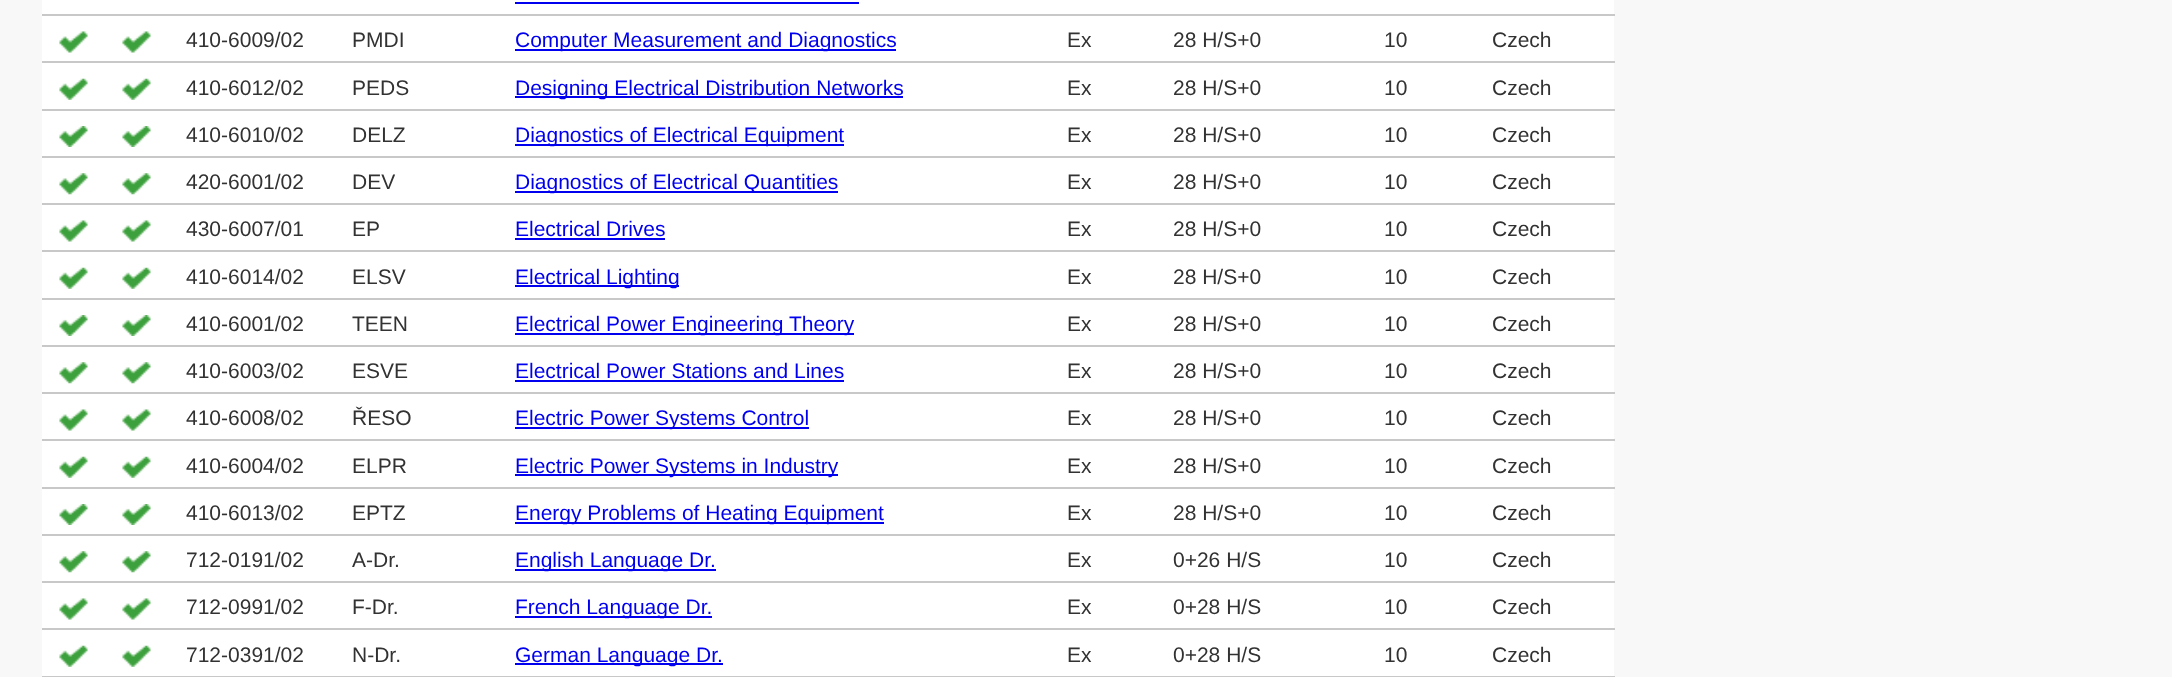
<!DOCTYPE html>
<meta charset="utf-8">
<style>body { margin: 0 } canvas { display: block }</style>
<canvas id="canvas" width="2172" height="677"></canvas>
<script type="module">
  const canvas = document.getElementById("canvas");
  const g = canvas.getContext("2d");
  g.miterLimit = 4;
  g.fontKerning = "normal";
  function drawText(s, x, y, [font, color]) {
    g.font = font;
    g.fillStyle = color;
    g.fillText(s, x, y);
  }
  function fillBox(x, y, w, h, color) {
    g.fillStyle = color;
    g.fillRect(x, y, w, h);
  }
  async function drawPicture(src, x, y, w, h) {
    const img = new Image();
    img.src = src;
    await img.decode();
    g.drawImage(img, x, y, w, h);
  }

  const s1 = ["21px Liberation Sans", "#323232"];
  const s2 = ["21px Liberation Sans", "#0000EE"];

  fillBox(0, 0, 2172, 677, "#F8F8F8");
  fillBox(42, 0, 1572, 14, "#FFFFFF");
  fillBox(515, 2, 344, 2, "#0000EE");
  fillBox(42, 14, 1573, 2, "#C8C8C8");
  fillBox(42, 16, 1572, 45, "#FFFFFF");
  await drawPicture("pic1.png", 59, 31, 29, 22);
  await drawPicture("pic1.png", 122, 31, 29, 22);
  drawText("410-6009/02", 186, 47, s1);
  drawText("PMDI", 352, 47, s1);
  fillBox(515, 49, 381, 2, "#0000EE");
  drawText("Computer Measurement and Diagnostics", 515, 47, s2);
  drawText("Ex", 1067, 47, s1);
  drawText("28 H/S+0", 1173, 47, s1);
  drawText("10", 1384, 47, s1);
  fillBox(42, 61, 1573, 2, "#C8C8C8");
  drawText("Czech", 1492, 47, s1);
  fillBox(42, 63, 1572, 46, "#FFFFFF");
  await drawPicture("pic2.png", 59, 78, 29, 22);
  await drawPicture("pic2.png", 122, 78, 29, 22);
  drawText("410-6012/02", 186, 95, s1);
  drawText("PEDS", 352, 95, s1);
  fillBox(515, 96, 388, 2, "#0000EE");
  drawText("Designing Electrical Distribution Networks", 515, 95, s2);
  drawText("Ex", 1067, 95, s1);
  drawText("28 H/S+0", 1173, 95, s1);
  drawText("10", 1384, 95, s1);
  fillBox(42, 109, 1573, 2, "#C8C8C8");
  drawText("Czech", 1492, 95, s1);
  fillBox(42, 111, 1572, 45, "#FFFFFF");
  await drawPicture("pic3.png", 59, 126, 29, 21);
  await drawPicture("pic3.png", 122, 126, 29, 21);
  drawText("410-6010/02", 186, 142, s1);
  drawText("DELZ", 352, 142, s1);
  fillBox(515, 144, 329, 2, "#0000EE");
  drawText("Diagnostics of Electrical Equipment", 515, 142, s2);
  drawText("Ex", 1067, 142, s1);
  drawText("28 H/S+0", 1173, 142, s1);
  drawText("10", 1384, 142, s1);
  fillBox(42, 156, 1573, 2, "#C8C8C8");
  drawText("Czech", 1492, 142, s1);
  fillBox(42, 158, 1572, 45, "#FFFFFF");
  await drawPicture("pic4.png", 59, 173, 29, 22);
  await drawPicture("pic4.png", 122, 173, 29, 22);
  drawText("420-6001/02", 186, 189, s1);
  drawText("DEV", 352, 189, s1);
  fillBox(515, 191, 323, 2, "#0000EE");
  drawText("Diagnostics of Electrical Quantities", 515, 189, s2);
  drawText("Ex", 1067, 189, s1);
  drawText("28 H/S+0", 1173, 189, s1);
  drawText("10", 1384, 189, s1);
  fillBox(42, 203, 1573, 2, "#C8C8C8");
  drawText("Czech", 1492, 189, s1);
  fillBox(42, 205, 1572, 45, "#FFFFFF");
  await drawPicture("pic1.png", 59, 220, 29, 22);
  await drawPicture("pic1.png", 122, 220, 29, 22);
  drawText("430-6007/01", 186, 236, s1);
  drawText("EP", 352, 236, s1);
  drawText("Electrical Drives", 515, 236, s2);
  fillBox(515, 238, 150, 2, "#0000EE");
  drawText("Ex", 1067, 236, s1);
  drawText("28 H/S+0", 1173, 236, s1);
  drawText("10", 1384, 236, s1);
  fillBox(42, 250, 1573, 2, "#C8C8C8");
  drawText("Czech", 1492, 236, s1);
  fillBox(42, 252, 1572, 46, "#FFFFFF");
  await drawPicture("pic2.png", 59, 267, 29, 22);
  await drawPicture("pic2.png", 122, 267, 29, 22);
  drawText("410-6014/02", 186, 284, s1);
  drawText("ELSV", 352, 284, s1);
  fillBox(515, 285, 164, 2, "#0000EE");
  drawText("Electrical Lighting", 515, 284, s2);
  drawText("Ex", 1067, 284, s1);
  drawText("28 H/S+0", 1173, 284, s1);
  drawText("10", 1384, 284, s1);
  fillBox(42, 298, 1573, 2, "#C8C8C8");
  drawText("Czech", 1492, 284, s1);
  fillBox(42, 300, 1572, 45, "#FFFFFF");
  await drawPicture("pic3.png", 59, 315, 29, 21);
  await drawPicture("pic3.png", 122, 315, 29, 21);
  drawText("410-6001/02", 186, 331, s1);
  drawText("TEEN", 352, 331, s1);
  fillBox(515, 333, 339, 2, "#0000EE");
  drawText("Electrical Power Engineering Theory", 515, 331, s2);
  drawText("Ex", 1067, 331, s1);
  drawText("28 H/S+0", 1173, 331, s1);
  drawText("10", 1384, 331, s1);
  fillBox(42, 345, 1573, 2, "#C8C8C8");
  drawText("Czech", 1492, 331, s1);
  fillBox(42, 347, 1572, 45, "#FFFFFF");
  await drawPicture("pic4.png", 59, 362, 29, 22);
  await drawPicture("pic4.png", 122, 362, 29, 22);
  drawText("410-6003/02", 186, 378, s1);
  drawText("ESVE", 352, 378, s1);
  drawText("Electrical Power Stations and Lines", 515, 378, s2);
  fillBox(515, 380, 329, 2, "#0000EE");
  drawText("Ex", 1067, 378, s1);
  drawText("28 H/S+0", 1173, 378, s1);
  drawText("10", 1384, 378, s1);
  fillBox(42, 392, 1573, 2, "#C8C8C8");
  drawText("Czech", 1492, 378, s1);
  fillBox(42, 394, 1572, 45, "#FFFFFF");
  await drawPicture("pic1.png", 59, 409, 29, 22);
  await drawPicture("pic1.png", 122, 409, 29, 22);
  drawText("410-6008/02", 186, 425, s1);
  drawText("ŘESO", 352, 425, s1);
  fillBox(515, 427, 294, 2, "#0000EE");
  drawText("Electric Power Systems Control", 515, 425, s2);
  drawText("Ex", 1067, 425, s1);
  drawText("28 H/S+0", 1173, 425, s1);
  drawText("10", 1384, 425, s1);
  fillBox(42, 439, 1573, 2, "#C8C8C8");
  drawText("Czech", 1492, 425, s1);
  fillBox(42, 441, 1572, 46, "#FFFFFF");
  await drawPicture("pic2.png", 59, 456, 29, 22);
  await drawPicture("pic2.png", 122, 456, 29, 22);
  drawText("410-6004/02", 186, 473, s1);
  drawText("ELPR", 352, 473, s1);
  fillBox(515, 474, 323, 2, "#0000EE");
  drawText("Electric Power Systems in Industry", 515, 473, s2);
  drawText("Ex", 1067, 473, s1);
  drawText("28 H/S+0", 1173, 473, s1);
  drawText("10", 1384, 473, s1);
  fillBox(42, 487, 1573, 2, "#C8C8C8");
  drawText("Czech", 1492, 473, s1);
  fillBox(42, 489, 1572, 45, "#FFFFFF");
  await drawPicture("pic3.png", 59, 504, 29, 21);
  await drawPicture("pic3.png", 122, 504, 29, 21);
  drawText("410-6013/02", 186, 520, s1);
  drawText("EPTZ", 352, 520, s1);
  fillBox(515, 522, 369, 2, "#0000EE");
  drawText("Energy Problems of Heating Equipment", 515, 520, s2);
  drawText("Ex", 1067, 520, s1);
  drawText("28 H/S+0", 1173, 520, s1);
  drawText("10", 1384, 520, s1);
  fillBox(42, 534, 1573, 2, "#C8C8C8");
  drawText("Czech", 1492, 520, s1);
  fillBox(42, 536, 1572, 45, "#FFFFFF");
  await drawPicture("pic4.png", 59, 551, 29, 22);
  await drawPicture("pic4.png", 122, 551, 29, 22);
  drawText("712-0191/02", 186, 567, s1);
  drawText("A-Dr.", 352, 567, s1);
  fillBox(515, 569, 201, 2, "#0000EE");
  drawText("English Language Dr.", 515, 567, s2);
  drawText("Ex", 1067, 567, s1);
  drawText("0+26 H/S", 1173, 567, s1);
  drawText("10", 1384, 567, s1);
  fillBox(42, 581, 1573, 2, "#C8C8C8");
  drawText("Czech", 1492, 567, s1);
  fillBox(42, 583, 1572, 45, "#FFFFFF");
  await drawPicture("pic1.png", 59, 598, 29, 22);
  await drawPicture("pic1.png", 122, 598, 29, 22);
  drawText("712-0991/02", 186, 614, s1);
  drawText("F-Dr.", 352, 614, s1);
  fillBox(515, 616, 197, 2, "#0000EE");
  drawText("French Language Dr.", 515, 614, s2);
  drawText("Ex", 1067, 614, s1);
  drawText("0+28 H/S", 1173, 614, s1);
  drawText("10", 1384, 614, s1);
  fillBox(42, 628, 1573, 2, "#C8C8C8");
  drawText("Czech", 1492, 614, s1);
  fillBox(42, 630, 1572, 46, "#FFFFFF");
  await drawPicture("pic2.png", 59, 645, 29, 22);
  await drawPicture("pic2.png", 122, 645, 29, 22);
  drawText("712-0391/02", 186, 662, s1);
  drawText("N-Dr.", 352, 662, s1);
  fillBox(515, 663, 208, 2, "#0000EE");
  drawText("German Language Dr.", 515, 662, s2);
  drawText("Ex", 1067, 662, s1);
  drawText("0+28 H/S", 1173, 662, s1);
  drawText("10", 1384, 662, s1);
  fillBox(42, 676, 1573, 1, "#C8C8C8");
  drawText("Czech", 1492, 662, s1);
</script>
